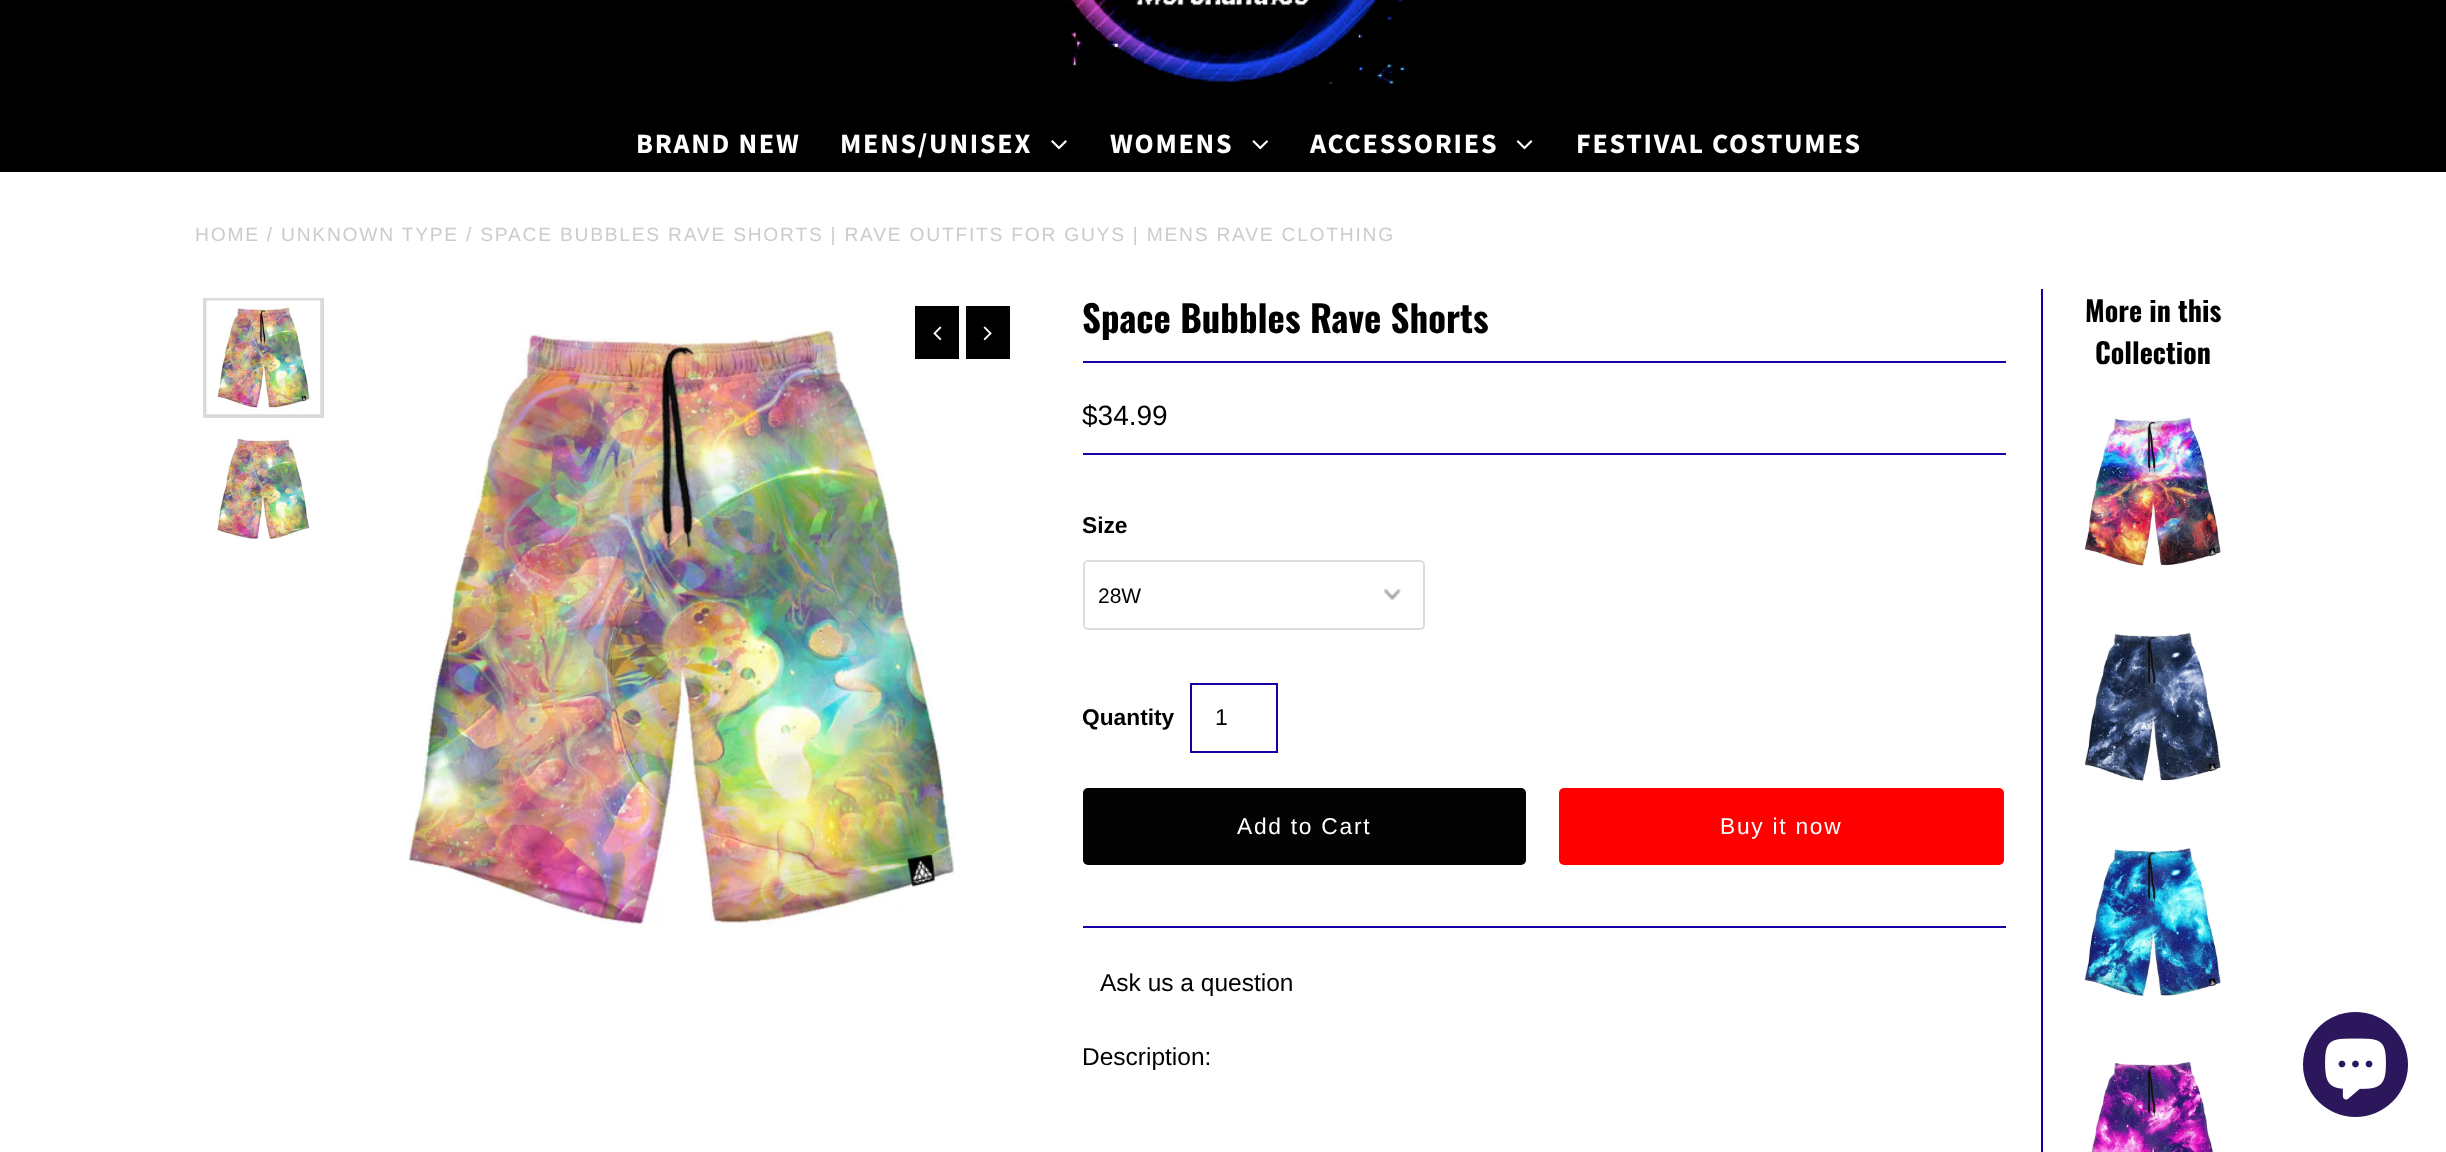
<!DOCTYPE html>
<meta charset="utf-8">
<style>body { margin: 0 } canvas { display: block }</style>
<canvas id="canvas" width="2446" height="1152"></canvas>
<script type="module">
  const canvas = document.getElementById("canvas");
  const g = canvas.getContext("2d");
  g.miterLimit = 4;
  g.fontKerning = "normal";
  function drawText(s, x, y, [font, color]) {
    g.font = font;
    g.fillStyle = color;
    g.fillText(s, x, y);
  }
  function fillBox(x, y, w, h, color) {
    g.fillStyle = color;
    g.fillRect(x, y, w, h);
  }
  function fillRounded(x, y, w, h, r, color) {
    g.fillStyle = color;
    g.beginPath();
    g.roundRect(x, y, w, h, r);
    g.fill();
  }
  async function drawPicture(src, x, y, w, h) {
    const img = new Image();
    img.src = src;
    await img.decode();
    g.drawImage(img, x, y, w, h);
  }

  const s1 = ["bold 28px Source Sans Pro", "#FFFFFF"];
  const s2 = ["19.25px Liberation Sans", "#CCCCCC"];
  const s3 = ["bold 36.75px Oswald", "#000000"];
  const s4 = ["28px Liberation Sans", "#000000"];
  const s5 = ["bold 22.75px Liberation Sans", "#000000"];
  const s6 = ["21px Liberation Sans", "#000000"];
  const s7 = ["23px Liberation Sans", "#000000"];
  const s8 = ["22.75px Liberation Sans", "#FFFFFF"];
  const s9 = ["24.5px Liberation Sans", "#000000"];
  const s10 = ["bold 28px Oswald", "#000000"];

  fillBox(0, 0, 2446, 1152, "#FFFFFF");
  fillBox(0, 0, 2446, 172, "#000000");
  await drawPicture("pic1.png", 1065, 0, 341, 84);
  g.letterSpacing = "1.75px";
  drawText("BRAND NEW", 636, 153, s1);
  drawText("MENS/UNISEX", 840, 153, s1);
  await drawPicture("pic2.png", 1051, 140, 16, 10);
  drawText("WOMENS", 1110, 153, s1);
  await drawPicture("pic3.png", 1252, 140, 16, 10);
  drawText("ACCESSORIES", 1310, 153, s1);
  await drawPicture("pic4.png", 1516, 140, 17, 10);
  drawText("FESTIVAL COSTUMES", 1576, 153, s1);
  drawText("HOME / UNKNOWN TYPE / SPACE BUBBLES RAVE SHORTS | RAVE OUTFITS FOR GUYS | MENS RAVE CLOTHING", 195, 241, s2);
  g.strokeStyle = "#DADADA";
  g.lineWidth = 4;
  g.strokeRect(205, 300, 117, 116);
  await drawPicture("pic5.png", 206, 300, 115, 115);
  await drawPicture("pic6.png", 217, 437, 93, 103);
  await drawPicture("pic7.png", 406, 328, 548, 601);
  fillBox(915, 306, 44, 53, "#000000");
  await drawPicture("pic8.png", 933, 326, 9, 15);
  fillBox(966, 306, 44, 53, "#000000");
  await drawPicture("pic9.png", 983, 326, 9, 15);
  fillBox(2041, 289, 2, 863, "#1500A4");
  g.letterSpacing = "0px";
  drawText("Space Bubbles Rave Shorts", 1082, 333, s3);
  fillBox(1083, 361, 923, 2, "#1500A4");
  fillBox(1083, 926, 923, 2, "#1500A4");
  fillBox(1083, 453, 923, 2, "#1500A4");
  drawText("$34.99", 1082, 425, s4);
  drawText("Size", 1082, 533, s5);
  await drawPicture("pic10.png", 1383, 589, 18, 12);
  g.beginPath();
  g.roundRect(1084, 561, 340, 68, 4);
  g.strokeStyle = "#DDDDDD";
  g.lineWidth = 2;
  g.stroke();
  drawText("28W", 1098, 603, s6);
  drawText("Quantity", 1082, 725, s5);
  g.strokeStyle = "#1500A4";
  g.strokeRect(1191, 684, 86, 68);
  drawText("1", 1215, 725, s7);
  fillRounded(1083, 788, 443, 77, 5, "#030303");
  g.letterSpacing = "1.75px";
  drawText("Add to Cart", 1237, 834, s8);
  fillRounded(1559, 788, 445, 77, 5, "#FF0000");
  drawText("Buy it now", 1720, 834, s8);
  g.letterSpacing = "0px";
  drawText("Ask us a question", 1100, 991, s9);
  drawText("Description:", 1082, 1065, s9);
  drawText("More in this", 2085, 322, s10);
  drawText("Collection", 2095, 364, s10);
  await drawPicture("pic11.png", 2084, 417, 137, 150);
  await drawPicture("pic12.png", 2084, 633, 137, 148);
  await drawPicture("pic13.png", 2084, 848, 137, 149);
  await drawPicture("pic14.png", 2091, 1062, 123, 90);
  g.fillStyle = "#2C175C";
  g.beginPath();
  g.arc(2355.5, 1064.5, 52.5, 0, Math.PI * 2);
  g.fill();
  await drawPicture("pic15.png", 2325, 1038, 61, 62);
</script>
